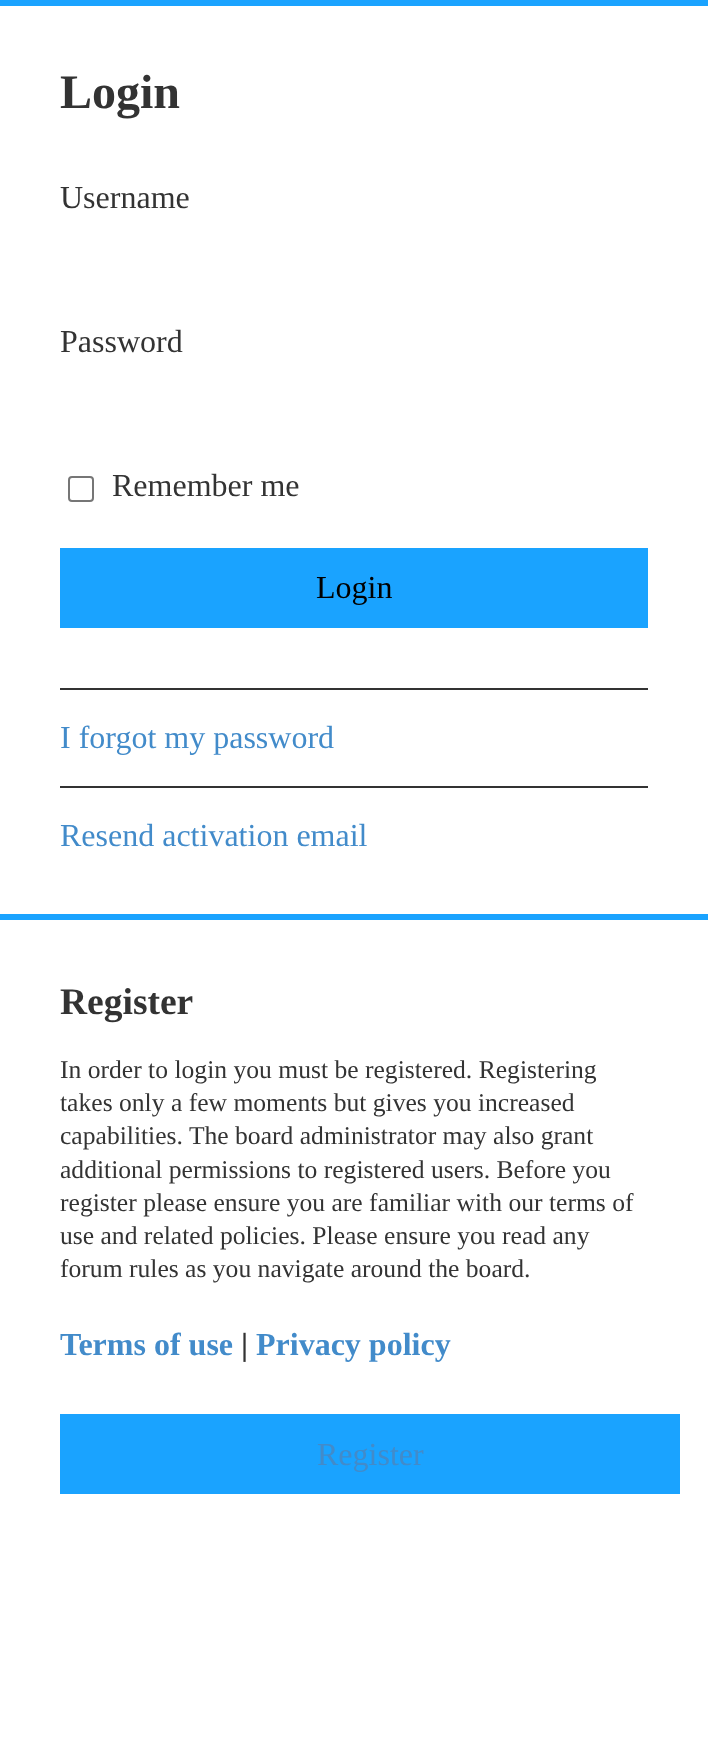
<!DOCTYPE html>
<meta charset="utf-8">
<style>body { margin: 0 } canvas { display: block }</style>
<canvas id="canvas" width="708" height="1750"></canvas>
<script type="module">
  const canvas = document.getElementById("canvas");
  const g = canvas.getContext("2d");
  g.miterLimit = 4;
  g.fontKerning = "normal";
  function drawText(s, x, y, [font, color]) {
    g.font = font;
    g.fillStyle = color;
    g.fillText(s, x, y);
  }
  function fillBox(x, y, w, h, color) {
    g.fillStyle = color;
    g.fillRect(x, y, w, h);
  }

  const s1 = ["bold 48px Liberation Serif", "#333333"];
  const s2 = ["32px Liberation Serif", "#333333"];
  const s3 = ["32px Liberation Serif", "#000000"];
  const s4 = ["32px Liberation Serif", "#428BCA"];
  const s5 = ["bold 37.5px Liberation Serif", "#333333"];
  const s6 = ["25.6px Liberation Serif", "#333333"];
  const s7 = ["bold 32px Liberation Serif", "#428BCA"];
  const s8 = ["bold 32px Liberation Serif", "#333333"];

  fillBox(0, 0, 708, 1750, "#FFFFFF");
  fillBox(0, 0, 708, 6, "#1AA3FF");
  drawText("Login", 60, 108, s1);
  drawText("Username", 60, 208, s2);
  drawText("Password", 60, 352, s2);
  g.beginPath();
  g.roundRect(69, 477, 24, 24, 3);
  g.strokeStyle = "#767676";
  g.lineWidth = 2;
  g.stroke();
  drawText("Remember me", 112, 496, s2);
  fillBox(60, 548, 588, 80, "#1AA3FF");
  drawText("Login", 316, 598, s3);
  fillBox(60, 688, 588, 2, "#333333");
  drawText("I forgot my password", 60, 748, s4);
  fillBox(60, 786, 588, 2, "#333333");
  drawText("Resend activation email", 60, 846, s4);
  fillBox(0, 914, 708, 6, "#1AA3FF");
  drawText("Register", 60, 1014, s5);
  drawText("In order to login you must be registered. Registering", 60, 1078, s6);
  drawText("takes only a few moments but gives you increased", 60, 1111, s6);
  drawText("capabilities. The board administrator may also grant", 60, 1144, s6);
  drawText("additional permissions to registered users. Before you", 60, 1178, s6);
  drawText("register please ensure you are familiar with our terms of", 60, 1211, s6);
  drawText("use and related policies. Please ensure you read any", 60, 1244, s6);
  drawText("forum rules as you navigate around the board.", 60, 1277, s6);
  drawText("Terms of use", 60, 1355, s7);
  drawText("|", 241, 1355, s8);
  drawText("Privacy policy", 256, 1355, s7);
  fillBox(60, 1414, 620, 80, "#1AA3FF");
  drawText("Register", 317, 1465, s4);
</script>
